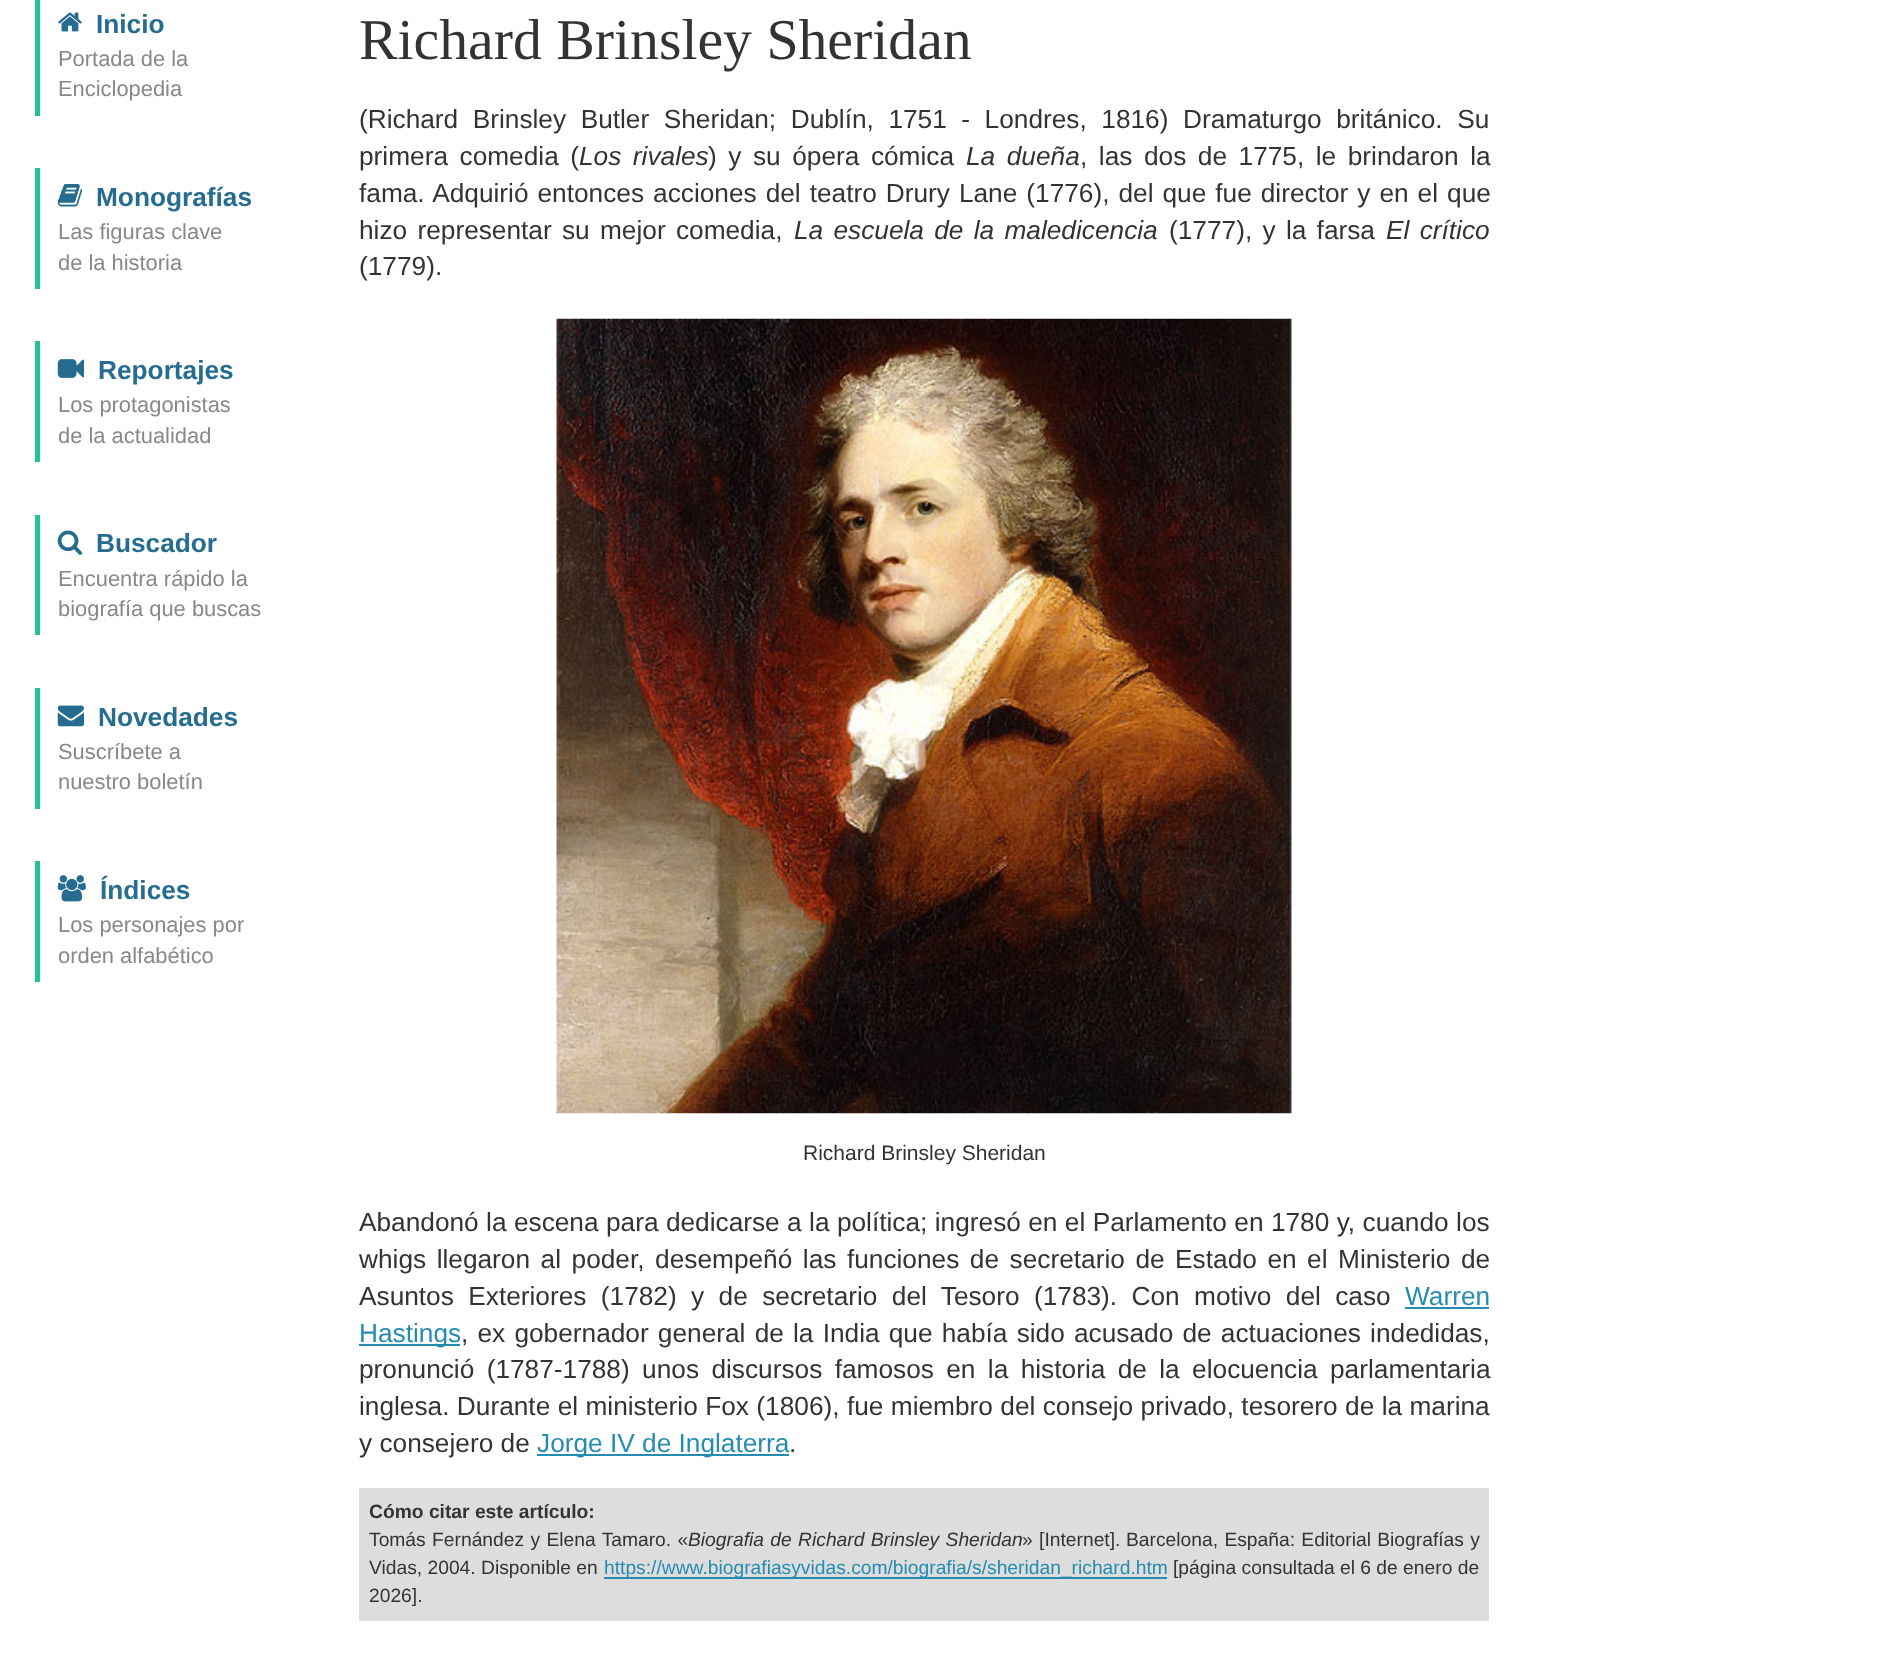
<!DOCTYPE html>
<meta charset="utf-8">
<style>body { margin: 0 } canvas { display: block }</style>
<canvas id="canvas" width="1889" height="1662"></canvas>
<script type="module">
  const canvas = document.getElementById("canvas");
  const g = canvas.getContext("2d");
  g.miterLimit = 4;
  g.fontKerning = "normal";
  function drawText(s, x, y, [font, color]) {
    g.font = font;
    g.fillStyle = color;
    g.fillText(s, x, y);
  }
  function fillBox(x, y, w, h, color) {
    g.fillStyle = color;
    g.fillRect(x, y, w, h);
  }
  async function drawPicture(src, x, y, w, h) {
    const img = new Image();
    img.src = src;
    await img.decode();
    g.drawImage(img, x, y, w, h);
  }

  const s1 = ["bold 26.25px Liberation Sans", "#256C90"];
  const s2 = ["21.9px Liberation Sans", "#888888"];
  const s3 = ["57.75px Liberation Serif", "#333333"];
  const s4 = ["26.25px Liberation Sans", "#333333"];
  const s5 = ["italic 26.25px Liberation Sans", "#333333"];
  const s6 = ["21px Liberation Sans", "#333333"];
  const s7 = ["26.25px Liberation Sans", "#258CB0"];
  const s8 = ["bold 19.25px Liberation Sans", "#333333"];
  const s9 = ["19.25px Liberation Sans", "#333333"];
  const s10 = ["italic 19.25px Liberation Sans", "#333333"];
  const s11 = ["19.25px Liberation Sans", "#258CB0"];

  fillBox(0, 0, 1889, 1662, "#FFFFFF");
  fillBox(35, 0, 5, 116, "#23C393");
  await drawPicture("pic1.png", 58, 12, 24, 20);
  drawText("Inicio", 96, 33, s1);
  drawText("Portada de la", 58, 66, s2);
  drawText("Enciclopedia", 58, 96, s2);
  fillBox(35, 168, 5, 121, "#23C393");
  await drawPicture("pic2.png", 57, 184, 26, 23);
  drawText("Monografías", 96, 206, s1);
  drawText("Las figuras clave", 58, 239, s2);
  drawText("de la historia", 58, 270, s2);
  fillBox(35, 341, 5, 121, "#23C393");
  await drawPicture("pic3.png", 57, 359, 27, 19);
  drawText("Reportajes", 98, 379, s1);
  drawText("Los protagonistas", 58, 412, s2);
  drawText("de la actualidad", 58, 443, s2);
  fillBox(35, 515, 5, 120, "#23C393");
  await drawPicture("pic4.png", 57, 530, 26, 25);
  drawText("Buscador", 96, 552, s1);
  drawText("Encuentra rápido la", 58, 586, s2);
  drawText("biografía que buscas", 58, 616, s2);
  fillBox(35, 688, 5, 121, "#23C393");
  await drawPicture("pic5.png", 57, 705, 27, 22);
  drawText("Novedades", 98, 726, s1);
  drawText("Suscríbete a", 58, 759, s2);
  drawText("nuestro boletín", 58, 789, s2);
  fillBox(35, 861, 5, 121, "#23C393");
  await drawPicture("pic6.png", 57, 875, 29, 27);
  drawText("Índices", 100, 899, s1);
  drawText("Los personajes por", 58, 932, s2);
  drawText("orden alfabético", 58, 963, s2);
  drawText("Richard Brinsley Sheridan", 359, 59, s3);
  g.wordSpacing = "7.25px";
  drawText("(Richard Brinsley Butler Sheridan; Dublín, 1751 - Londres, 1816) Dramaturgo británico. Su", 359, 128, s4);
  g.wordSpacing = "4.25px";
  drawText("primera comedia (", 359, 165, s4);
  drawText("Los rivales", 579, 165, s5);
  drawText(") y su ópera cómica", 708, 165, s4);
  drawText("La dueña", 966, 165, s5);
  drawText(", las dos de 1775, le brindaron la", 1080, 165, s4);
  g.wordSpacing = "1.7px";
  drawText("fama. Adquirió entonces acciones del teatro Drury Lane (1776), del que fue director y en el que", 359, 202, s4);
  g.wordSpacing = "3px";
  drawText("hizo representar su mejor comedia,", 359, 239, s4);
  drawText("La escuela de la maledicencia", 794, 239, s5);
  drawText("(1777), y la farsa", 1169, 239, s4);
  drawText("El crítico", 1386, 239, s5);
  g.wordSpacing = "0px";
  drawText("(1779).", 359, 275, s4);
  await drawPicture("pic7.png", 556, 318, 736, 796);
  drawText("Richard Brinsley Sheridan", 803, 1160, s6);
  g.wordSpacing = "0.1px";
  drawText("Abandonó la escena para dedicarse a la política; ingresó en el Parlamento en 1780 y, cuando los", 359, 1231, s4);
  g.wordSpacing = "3.25px";
  drawText("whigs llegaron al poder, desempeñó las funciones de secretario de Estado en el Ministerio de", 359, 1268, s4);
  g.wordSpacing = "7.1px";
  drawText("Asuntos Exteriores (1782) y de secretario del Tesoro (1783). Con motivo del caso", 359, 1305, s4);
  g.wordSpacing = "0px";
  drawText("Warren", 1405, 1305, s7);
  fillBox(1405, 1307, 84, 2, "#258CB0");
  fillBox(359, 1344, 101, 2, "#258CB0");
  drawText("Hastings", 359, 1342, s7);
  g.wordSpacing = "1.9px";
  drawText(", ex gobernador general de la India que había sido acusado de actuaciones indedidas,", 461, 1342, s4);
  g.wordSpacing = "5.1px";
  drawText("pronunció (1787-1788) unos discursos famosos en la historia de la elocuencia parlamentaria", 359, 1378, s4);
  g.wordSpacing = "0.1px";
  drawText("inglesa. Durante el ministerio Fox (1806), fue miembro del consejo privado, tesorero de la marina", 359, 1415, s4);
  g.wordSpacing = "0px";
  drawText("y consejero de", 359, 1452, s4);
  fillBox(537, 1454, 252, 2, "#258CB0");
  drawText("Jorge IV de Inglaterra", 537, 1452, s7);
  drawText(".", 789, 1452, s4);
  fillBox(359, 1488, 1130, 133, "#DDDDDD");
  drawText("Cómo citar este artículo:", 369, 1518, s8);
  g.wordSpacing = "1px";
  drawText("Tomás Fernández y Elena Tamaro. «", 369, 1546, s9);
  drawText("Biografia de Richard Brinsley Sheridan", 688, 1546, s10);
  drawText("» [Internet].", 1022, 1546, s9);
  drawText("Barcelona, España: Editorial Biografías y", 1126, 1546, s9);
  g.wordSpacing = "0px";
  drawText("Vidas, 2004. Disponible en", 369, 1574, s9);
  fillBox(604, 1577, 563, 2, "#258CB0");
  drawText("https://www.biografiasyvidas.com/biografia/s/sheridan_richard.htm", 604, 1574, s11);
  drawText("[página consultada el 6 de enero de", 1173, 1574, s9);
  drawText("2026].", 369, 1602, s9);
</script>
